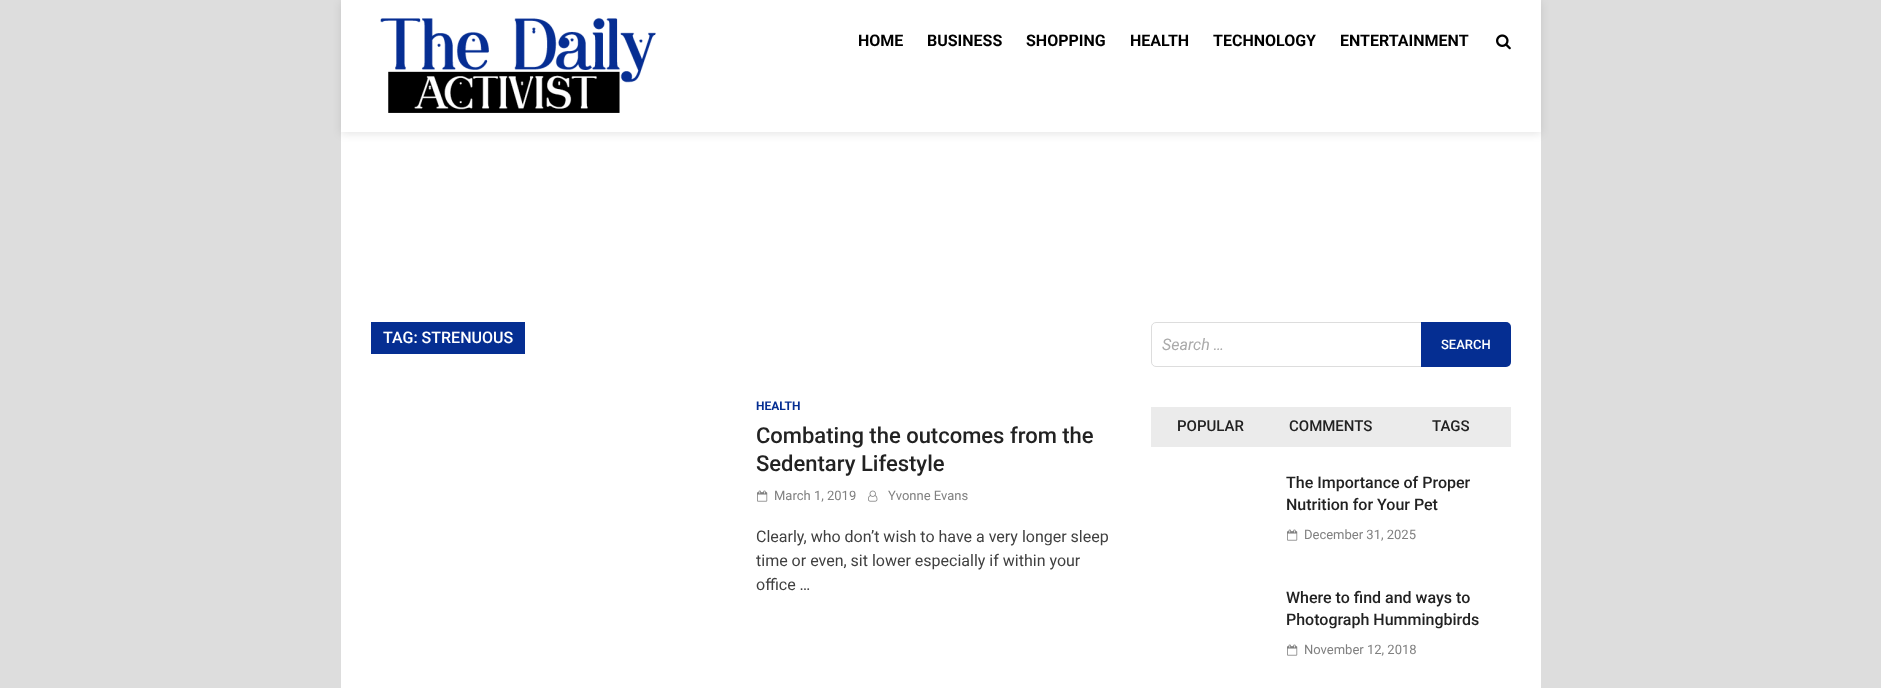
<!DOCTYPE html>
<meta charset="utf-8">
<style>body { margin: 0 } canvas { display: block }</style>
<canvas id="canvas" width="1881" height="688"></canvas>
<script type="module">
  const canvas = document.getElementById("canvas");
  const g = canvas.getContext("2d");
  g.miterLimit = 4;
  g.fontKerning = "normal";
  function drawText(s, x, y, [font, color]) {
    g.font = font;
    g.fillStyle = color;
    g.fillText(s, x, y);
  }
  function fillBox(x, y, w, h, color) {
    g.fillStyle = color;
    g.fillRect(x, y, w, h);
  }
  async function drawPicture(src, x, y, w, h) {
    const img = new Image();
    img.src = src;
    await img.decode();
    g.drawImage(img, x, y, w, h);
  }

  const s1 = ["bold 16px Roboto", "#000000"];
  const s2 = ["500 16px Roboto", "#FFFFFF"];
  const s3 = ["bold 12px Roboto", "#052E92"];
  const s4 = ["500 22px Roboto", "#222222"];
  const s5 = ["13px Roboto", "#808080"];
  const s6 = ["16px Roboto", "#404040"];
  const s7 = ["italic 16px Roboto", "#AAAAAA"];
  const s8 = ["500 13px Roboto", "#FFFFFF"];
  const s9 = ["500 15px Roboto", "#222222"];
  const s10 = ["500 16px Roboto", "#222222"];

  fillBox(0, 0, 1881, 688, "#DDDDDD");
  fillBox(341, 0, 1200, 688, "#FFFFFF");
  g.save();
  g.beginPath();
  g.moveTo(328, 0);
  g.lineTo(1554, 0);
  g.lineTo(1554, 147);
  g.lineTo(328, 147);
  g.closePath();
  g.moveTo(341, 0);
  g.lineTo(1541, 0);
  g.lineTo(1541, 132);
  g.lineTo(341, 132);
  g.closePath();
  g.clip("evenodd");
  g.fillStyle = "rgba(0, 0, 0, 0.1)";
  g.filter = "blur(4px)";
  g.beginPath();
  g.rect(341, 2, 1200, 132);
  g.fill();
  g.filter = "none";
  g.restore();
  await drawPicture("pic1.png", 380, 17, 276, 96);
  drawText("HOME", 858, 46, s1);
  drawText("BUSINESS", 927, 46, s1);
  drawText("SHOPPING", 1026, 46, s1);
  drawText("HEALTH", 1130, 46, s1);
  drawText("TECHNOLOGY", 1213, 46, s1);
  drawText("ENTERTAINMENT", 1340, 46, s1);
  await drawPicture("pic2.png", 1496, 34, 15, 16);
  fillBox(371, 322, 154, 32, "#052E92");
  drawText("TAG: STRENUOUS", 383, 343, s2);
  drawText("HEALTH", 756, 410, s3);
  drawText("Combating the outcomes from the", 756, 443, s4);
  drawText("Sedentary Lifestyle", 756, 471, s4);
  await drawPicture("pic3.png", 757, 490, 11, 12);
  drawText("March 1, 2019", 774, 500, s5);
  await drawPicture("pic4.png", 868, 490, 10, 12);
  drawText("Yvonne Evans", 888, 500, s5);
  drawText("Clearly, who don’t wish to have a very longer sleep", 756, 542, s6);
  drawText("time or even, sit lower especially if within your", 756, 566, s6);
  drawText("office …", 756, 590, s6);
  g.beginPath();
  g.roundRect(1151.5, 322.5, 359, 44, 4.5);
  g.strokeStyle = "#DDDDDD";
  g.stroke();
  drawText("Search …", 1162, 350, s7);
  g.fillStyle = "#052E92";
  g.beginPath();
  g.roundRect(1421, 322, 90, 45, [0, 5, 5, 0]);
  g.fill();
  drawText("SEARCH", 1441, 349, s8);
  fillBox(1151, 407, 360, 40, "#EBEBEB");
  drawText("POPULAR", 1177, 431, s9);
  drawText("COMMENTS", 1289, 431, s9);
  drawText("TAGS", 1432, 431, s9);
  drawText("The Importance of Proper", 1286, 488, s10);
  drawText("Nutrition for Your Pet", 1286, 510, s10);
  await drawPicture("pic3.png", 1287, 529, 11, 12);
  drawText("December 31, 2025", 1304, 539, s5);
  drawText("Where to find and ways to", 1286, 603, s10);
  drawText("Photograph Hummingbirds", 1286, 625, s10);
  await drawPicture("pic3.png", 1287, 644, 11, 12);
  drawText("November 12, 2018", 1304, 654, s5);
</script>
